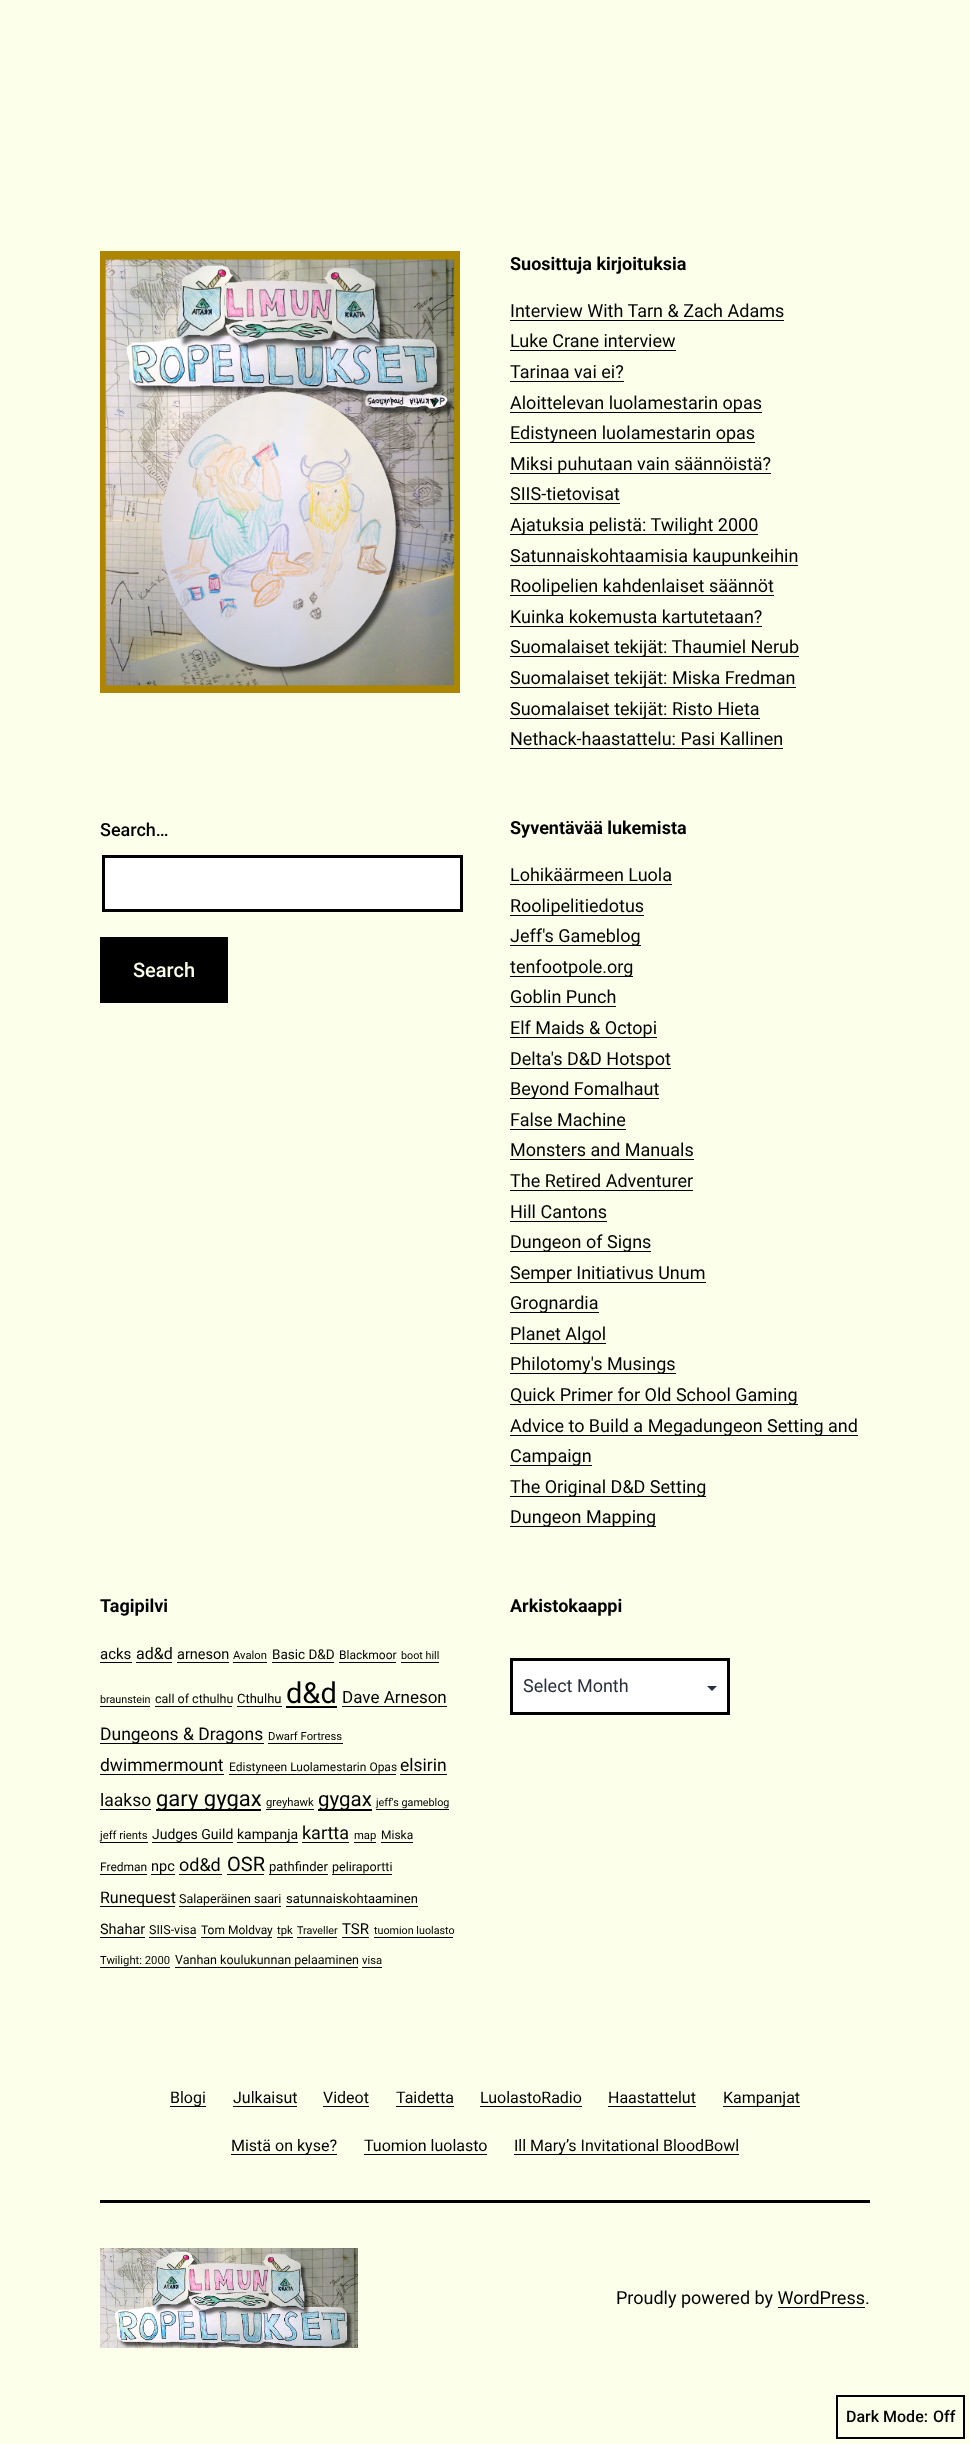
<!DOCTYPE html>
<meta charset="utf-8">
<style>body { margin: 0 } canvas { display: block }</style>
<canvas id="canvas" width="970" height="2444"></canvas>
<script type="module">
  const canvas = document.getElementById("canvas");
  const g = canvas.getContext("2d");
  g.miterLimit = 4;
  g.fontKerning = "normal";
  function drawText(s, x, y, [font, color]) {
    g.font = font;
    g.fillStyle = color;
    g.fillText(s, x, y);
  }
  function fillBox(x, y, w, h, color) {
    g.fillStyle = color;
    g.fillRect(x, y, w, h);
  }
  async function drawPicture(src, x, y, w, h) {
    const img = new Image();
    img.src = src;
    await img.decode();
    g.drawImage(img, x, y, w, h);
  }

  const s1 = ["bold 18px Roboto", "#000000"];
  const s2 = ["18px Roboto", "#000000"];
  const s3 = ["500 18px Roboto", "#000000"];
  const s4 = ["500 20px Roboto", "#FCFFEA"];
  const s5 = ["15px Roboto", "#000000"];
  const s6 = ["16px Roboto", "#000000"];
  const s7 = ["14.5px Roboto", "#000000"];
  const s8 = ["11.25px Roboto", "#000000"];
  const s9 = ["13.5px Roboto", "#000000"];
  const s10 = ["12px Roboto", "#000000"];
  const s11 = ["10.75px Roboto", "#000000"];
  const s12 = ["12.5px Roboto", "#000000"];
  const s13 = ["13px Roboto", "#000000"];
  const s14 = ["29px Roboto", "#000000"];
  const s15 = ["17px Roboto", "#000000"];
  const s16 = ["17.5px Roboto", "#000000"];
  const s17 = ["22px Roboto", "#000000"];
  const s18 = ["20.5px Roboto", "#000000"];
  const s19 = ["14px Roboto", "#000000"];
  const s20 = ["20px Roboto", "#000000"];
  const s21 = ["18px Roboto", "#28303D"];
  const s22 = ["500 16px Roboto", "#000000"];

  fillBox(0, 0, 970, 2444, "#FCFFEA");
  await drawPicture("pic1.png", 100, 251, 360, 442);
  drawText("Suosittuja kirjoituksia", 510, 270, s1);
  drawText("Interview With Tarn & Zach Adams", 510, 317, s2);
  fillBox(510, 320, 274, 1, "#000000");
  drawText("Luke Crane interview", 510, 347, s2);
  fillBox(510, 350, 166, 1, "#000000");
  drawText("Tarinaa vai ei?", 510, 378, s2);
  fillBox(510, 381, 114, 1, "#000000");
  fillBox(510, 412, 252, 1, "#000000");
  drawText("Aloittelevan luolamestarin opas", 510, 409, s2);
  fillBox(510, 442, 245, 1, "#000000");
  drawText("Edistyneen luolamestarin opas", 510, 439, s2);
  fillBox(510, 473, 261, 1, "#000000");
  drawText("Miksi puhutaan vain säännöistä?", 510, 470, s2);
  drawText("SIIS-tietovisat", 510, 500, s2);
  fillBox(510, 503, 110, 1, "#000000");
  fillBox(510, 534, 248, 1, "#000000");
  drawText("Ajatuksia pelistä: Twilight 2000", 510, 531, s2);
  fillBox(510, 565, 288, 1, "#000000");
  drawText("Satunnaiskohtaamisia kaupunkeihin", 510, 562, s2);
  fillBox(510, 595, 264, 1, "#000000");
  drawText("Roolipelien kahdenlaiset säännöt", 510, 592, s2);
  drawText("Kuinka kokemusta kartutetaan?", 510, 623, s2);
  fillBox(510, 626, 252, 1, "#000000");
  fillBox(510, 656, 289, 1, "#000000");
  drawText("Suomalaiset tekijät: Thaumiel Nerub", 510, 653, s2);
  fillBox(510, 687, 286, 1, "#000000");
  drawText("Suomalaiset tekijät: Miska Fredman", 510, 684, s2);
  fillBox(510, 718, 250, 1, "#000000");
  drawText("Suomalaiset tekijät: Risto Hieta", 510, 715, s2);
  drawText("Nethack-haastattelu: Pasi Kallinen", 510, 745, s2);
  fillBox(510, 748, 273, 1, "#000000");
  drawText("Search…", 100, 836, s3);
  g.fillStyle = "#FFFFFF";
  g.beginPath();
  g.rect(103.5, 856.5, 358, 54);
  g.fill();
  g.strokeStyle = "#000000";
  g.lineWidth = 3;
  g.stroke();
  fillBox(100, 937, 128, 66, "#000000");
  drawText("Search", 133, 977, s4);
  drawText("Syventävää lukemista", 510, 834, s1);
  drawText("Lohikäärmeen Luola", 510, 881, s2);
  fillBox(510, 884, 162, 1, "#000000");
  fillBox(510, 915, 134, 1, "#000000");
  drawText("Roolipelitiedotus", 510, 912, s2);
  fillBox(510, 945, 131, 1, "#000000");
  drawText("Jeff's Gameblog", 510, 942, s2);
  fillBox(510, 976, 123, 1, "#000000");
  drawText("tenfootpole.org", 510, 973, s2);
  drawText("Goblin Punch", 510, 1003, s2);
  fillBox(510, 1006, 106, 1, "#000000");
  fillBox(510, 1037, 147, 1, "#000000");
  drawText("Elf Maids & Octopi", 510, 1034, s2);
  fillBox(510, 1068, 161, 1, "#000000");
  drawText("Delta's D&D Hotspot", 510, 1065, s2);
  fillBox(510, 1098, 149, 1, "#000000");
  drawText("Beyond Fomalhaut", 510, 1095, s2);
  drawText("False Machine", 510, 1126, s2);
  fillBox(510, 1129, 116, 1, "#000000");
  drawText("Monsters and Manuals", 510, 1156, s2);
  fillBox(510, 1159, 184, 1, "#000000");
  drawText("The Retired Adventurer", 510, 1187, s2);
  fillBox(510, 1190, 183, 1, "#000000");
  drawText("Hill Cantons", 510, 1218, s2);
  fillBox(510, 1221, 97, 1, "#000000");
  fillBox(510, 1251, 141, 1, "#000000");
  drawText("Dungeon of Signs", 510, 1248, s2);
  fillBox(510, 1282, 196, 1, "#000000");
  drawText("Semper Initiativus Unum", 510, 1279, s2);
  fillBox(510, 1312, 89, 1, "#000000");
  drawText("Grognardia", 510, 1309, s2);
  fillBox(510, 1343, 96, 1, "#000000");
  drawText("Planet Algol", 510, 1340, s2);
  fillBox(510, 1373, 166, 1, "#000000");
  drawText("Philotomy's Musings", 510, 1370, s2);
  fillBox(510, 1404, 288, 1, "#000000");
  drawText("Quick Primer for Old School Gaming", 510, 1401, s2);
  fillBox(510, 1435, 348, 1, "#000000");
  drawText("Advice to Build a Megadungeon Setting and", 510, 1432, s2);
  fillBox(510, 1465, 82, 1, "#000000");
  drawText("Campaign", 510, 1462, s2);
  fillBox(510, 1496, 196, 1, "#000000");
  drawText("The Original D&D Setting", 510, 1493, s2);
  fillBox(510, 1526, 146, 1, "#000000");
  drawText("Dungeon Mapping", 510, 1523, s2);
  drawText("Tagipilvi", 100, 1612, s1);
  drawText("acks", 100, 1659, s5);
  fillBox(100, 1662, 32, 1, "#000000");
  drawText("ad&d", 136, 1659, s6);
  fillBox(136, 1662, 36, 1, "#000000");
  drawText("arneson", 177, 1659, s7);
  fillBox(177, 1662, 52, 1, "#000000");
  drawText("Avalon", 233, 1659, s8);
  fillBox(233, 1662, 34, 1, "#000000");
  drawText("Basic D&D", 272, 1659, s9);
  fillBox(272, 1662, 62, 1, "#000000");
  drawText("Blackmoor", 339, 1659, s10);
  fillBox(339, 1662, 57, 1, "#000000");
  drawText("boot hill", 401, 1659, s11);
  fillBox(401, 1662, 38, 1, "#000000");
  drawText("braunstein", 100, 1703, s11);
  fillBox(100, 1706, 50, 1, "#000000");
  drawText("call of cthulhu", 155, 1703, s12);
  fillBox(155, 1706, 77, 1, "#000000");
  drawText("Cthulhu", 237, 1703, s13);
  fillBox(237, 1706, 45, 1, "#000000");
  drawText("d&d", 286, 1703, s14);
  fillBox(286, 1706, 51, 2, "#000000");
  drawText("Dave Arneson", 342, 1703, s15);
  fillBox(342, 1706, 105, 1, "#000000");
  fillBox(100, 1743, 164, 1, "#000000");
  drawText("Dungeons & Dragons", 100, 1740, s16);
  drawText("Dwarf Fortress", 268, 1740, s8);
  fillBox(268, 1743, 75, 1, "#000000");
  drawText("dwimmermount", 100, 1771, s16);
  fillBox(100, 1774, 124, 1, "#000000");
  drawText("Edistyneen Luolamestarin Opas", 229, 1771, s10);
  fillBox(229, 1774, 167, 1, "#000000");
  drawText("elsirin", 400, 1771, s16);
  fillBox(400, 1774, 47, 1, "#000000");
  drawText("laakso", 100, 1806, s16);
  fillBox(100, 1809, 51, 1, "#000000");
  fillBox(156, 1809, 105, 2, "#000000");
  drawText("gary gygax", 156, 1806, s17);
  drawText("greyhawk", 266, 1806, s8);
  fillBox(266, 1809, 48, 1, "#000000");
  fillBox(318, 1809, 54, 2, "#000000");
  drawText("gygax", 318, 1806, s18);
  drawText("jeff's gameblog", 376, 1806, s11);
  fillBox(376, 1809, 73, 1, "#000000");
  drawText("jeff rients", 100, 1839, s8);
  fillBox(100, 1842, 48, 1, "#000000");
  drawText("Judges Guild", 152, 1839, s19);
  fillBox(152, 1842, 81, 1, "#000000");
  drawText("kampanja", 237, 1839, s19);
  fillBox(237, 1842, 61, 1, "#000000");
  drawText("kartta", 302, 1839, s2);
  fillBox(302, 1842, 47, 1, "#000000");
  drawText("map", 354, 1839, s8);
  fillBox(354, 1842, 22, 1, "#000000");
  drawText("Miska", 381, 1839, s10);
  fillBox(381, 1842, 32, 1, "#000000");
  drawText("Fredman", 100, 1871, s10);
  fillBox(100, 1874, 47, 1, "#000000");
  drawText("npc", 151, 1871, s7);
  fillBox(151, 1874, 24, 1, "#000000");
  drawText("od&d", 179, 1871, s2);
  fillBox(179, 1874, 43, 1, "#000000");
  drawText("OSR", 227, 1871, s20);
  fillBox(227, 1874, 37, 1, "#000000");
  drawText("pathfinder", 269, 1871, s13);
  fillBox(269, 1874, 59, 1, "#000000");
  drawText("peliraportti", 332, 1871, s12);
  fillBox(332, 1874, 60, 1, "#000000");
  fillBox(100, 1906, 75, 1, "#000000");
  drawText("Runequest", 100, 1903, s6);
  drawText("Salaperäinen saari", 179, 1903, s12);
  fillBox(179, 1906, 102, 1, "#000000");
  drawText("satunnaiskohtaaminen", 286, 1903, s13);
  fillBox(286, 1906, 132, 1, "#000000");
  drawText("Shahar", 100, 1934, s7);
  fillBox(100, 1937, 45, 1, "#000000");
  drawText("SIIS-visa", 149, 1934, s12);
  fillBox(149, 1937, 47, 1, "#000000");
  drawText("Tom Moldvay", 201, 1934, s10);
  fillBox(201, 1937, 71, 1, "#000000");
  drawText("tpk", 277, 1934, s8);
  fillBox(277, 1937, 16, 1, "#000000");
  drawText("Traveller", 297, 1934, s11);
  fillBox(297, 1937, 40, 1, "#000000");
  drawText("TSR", 342, 1934, s5);
  fillBox(342, 1937, 27, 1, "#000000");
  drawText("tuomion luolasto", 374, 1934, s11);
  fillBox(374, 1937, 79, 1, "#000000");
  drawText("Twilight: 2000", 100, 1964, s8);
  fillBox(100, 1967, 70, 1, "#000000");
  drawText("Vanhan koulukunnan pelaaminen", 175, 1964, s12);
  fillBox(175, 1967, 183, 1, "#000000");
  drawText("visa", 362, 1964, s8);
  fillBox(362, 1967, 20, 1, "#000000");
  drawText("Arkistokaappi", 510, 1612, s1);
  fillBox(513, 1661, 214, 51, "#FFFFFF");
  g.fillStyle = "#28303D";
  g.beginPath();
  g.moveTo(707, 1686);
  g.lineTo(717, 1686);
  g.lineTo(712, 1691);
  g.closePath();
  g.fill();
  g.strokeRect(511.5, 1659.5, 217, 54);
  drawText("Select Month", 523, 1692, s21);
  fillBox(170, 2106, 36, 1, "#000000");
  drawText("Blogi", 170, 2103, s6);
  drawText("Julkaisut", 233, 2103, s6);
  fillBox(233, 2106, 64, 1, "#000000");
  drawText("Videot", 323, 2103, s6);
  fillBox(323, 2106, 46, 1, "#000000");
  drawText("Taidetta", 396, 2103, s6);
  fillBox(396, 2106, 58, 1, "#000000");
  drawText("LuolastoRadio", 480, 2103, s6);
  fillBox(480, 2106, 102, 1, "#000000");
  drawText("Haastattelut", 608, 2103, s6);
  fillBox(608, 2106, 88, 1, "#000000");
  fillBox(723, 2106, 77, 1, "#000000");
  drawText("Kampanjat", 723, 2103, s6);
  fillBox(231, 2154, 106, 1, "#000000");
  drawText("Mistä on kyse?", 231, 2151, s6);
  drawText("Tuomion luolasto", 364, 2151, s6);
  fillBox(364, 2154, 123, 1, "#000000");
  fillBox(514, 2154, 225, 1, "#000000");
  drawText("Ill Mary’s Invitational BloodBowl", 514, 2151, s6);
  fillBox(100, 2200, 770, 3, "#000000");
  await drawPicture("pic2.png", 100, 2248, 258, 100);
  drawText("Proudly powered by WordPress.", 616, 2304, s2);
  fillBox(778, 2307, 87, 1, "#000000");
  g.lineWidth = 2;
  g.strokeRect(837, 2396, 127, 42);
  drawText("Dark Mode:", 846, 2422, s22);
  drawText("Off", 933, 2422, s22);
</script>
